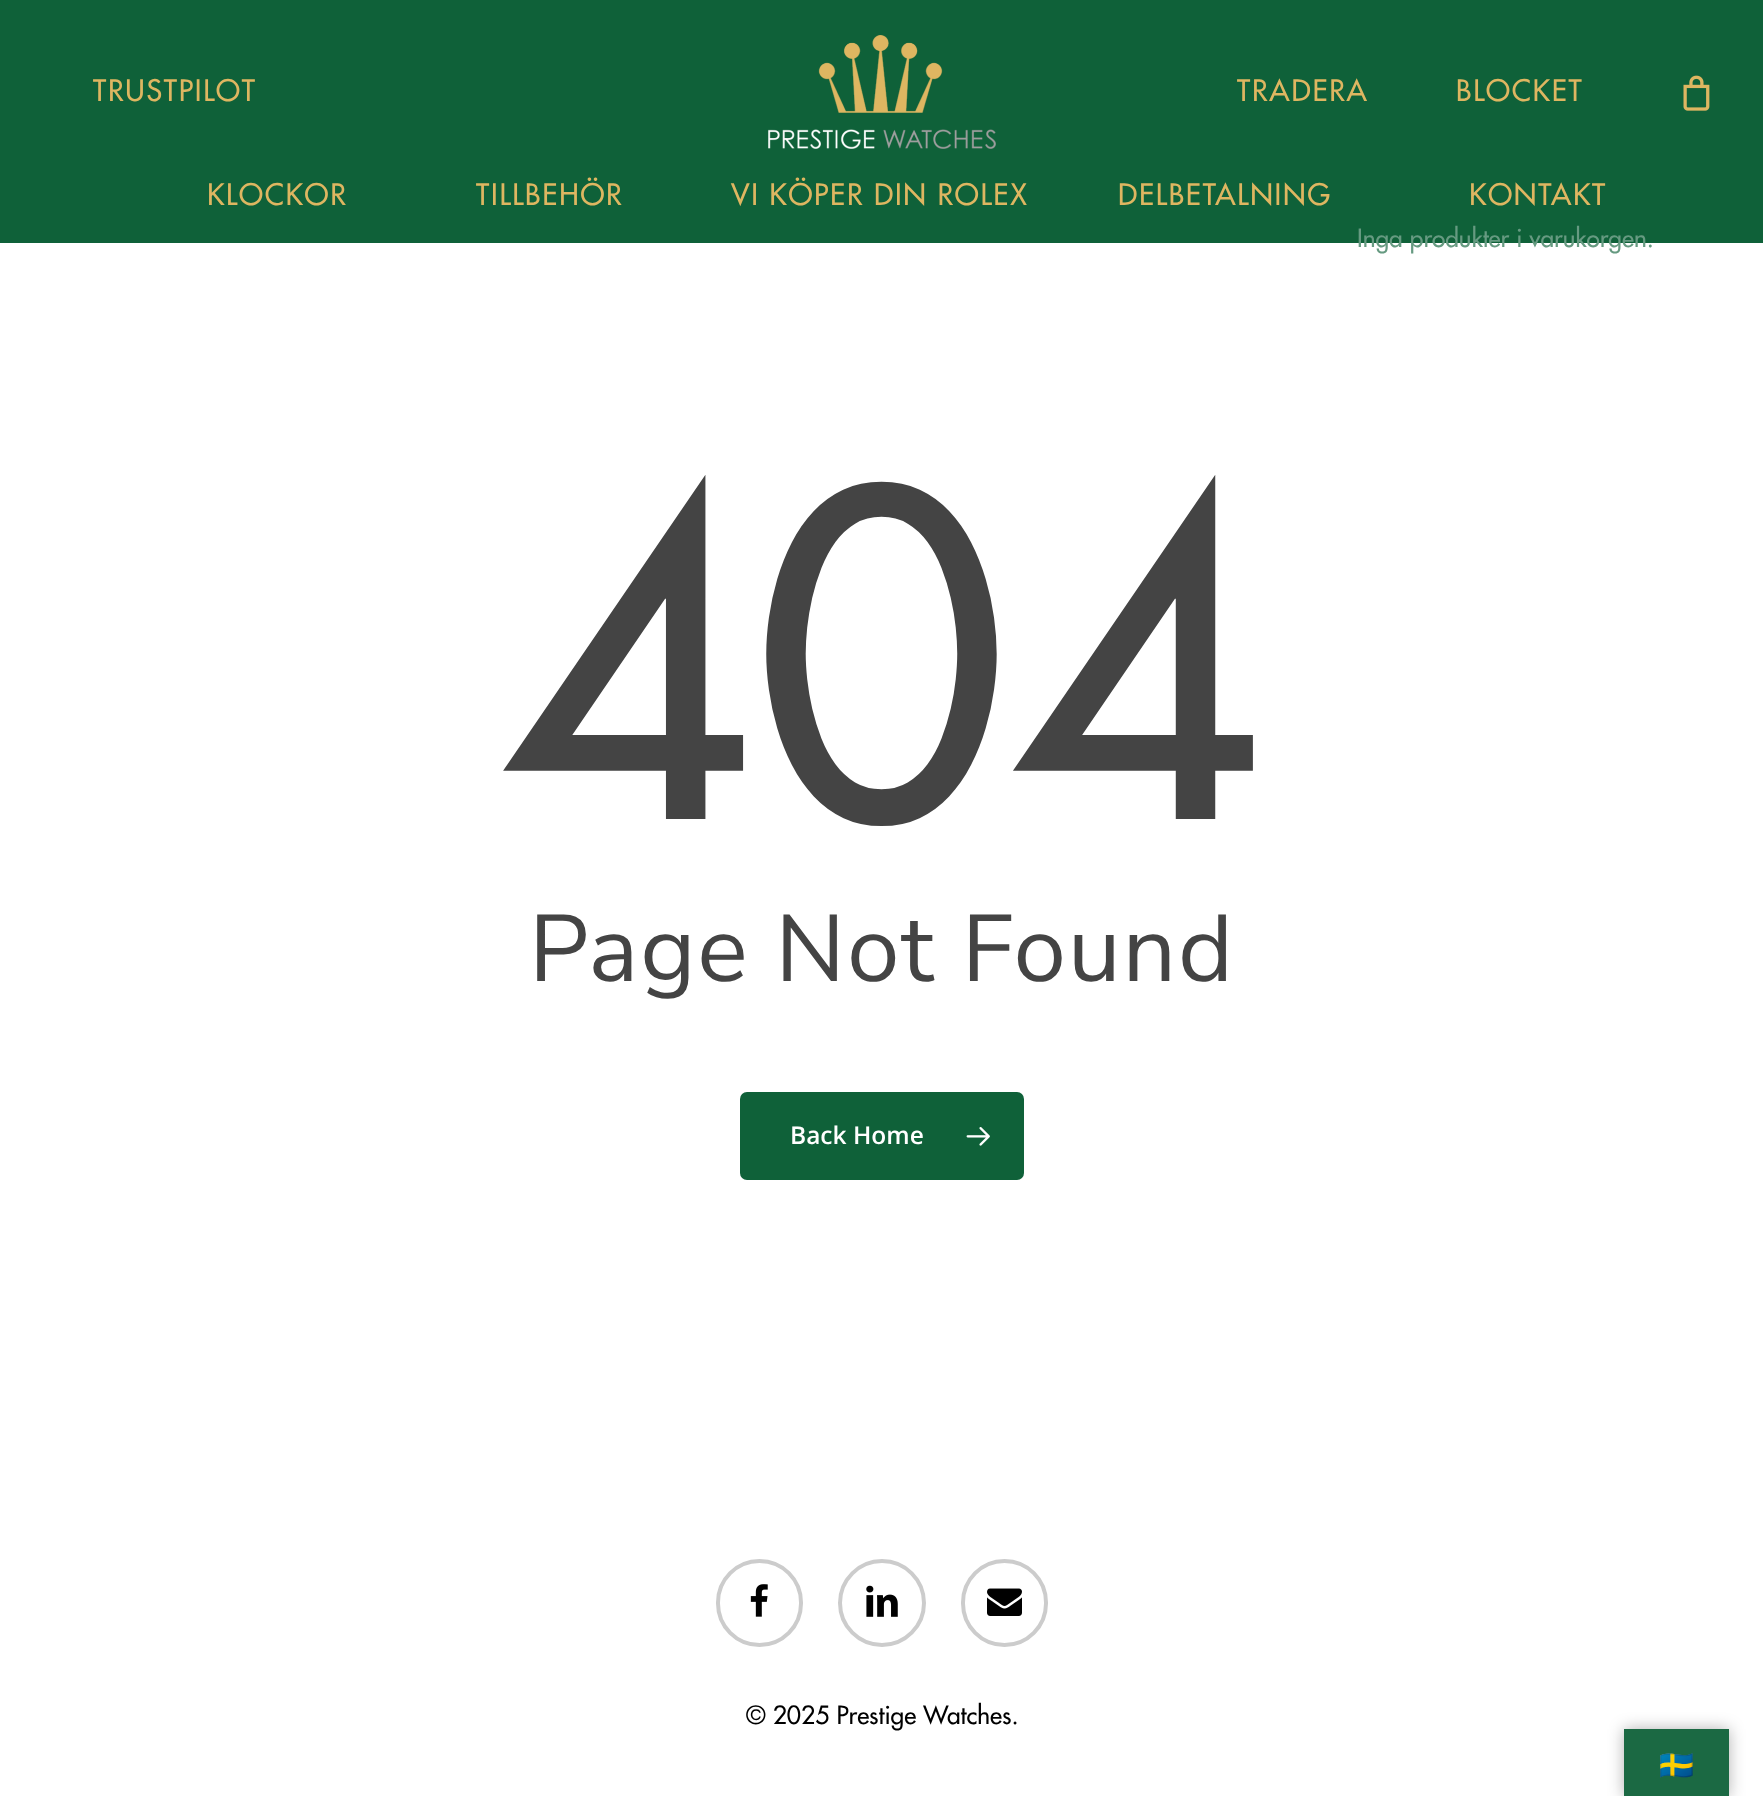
<!DOCTYPE html>
<meta charset="utf-8">
<style>body { margin: 0 } canvas { display: block }</style>
<canvas id="canvas" width="1763" height="1796"></canvas>
<script type="module">
  const canvas = document.getElementById("canvas");
  const g = canvas.getContext("2d");
  g.miterLimit = 4;
  g.fontKerning = "normal";
  function drawText(s, x, y, [font, color]) {
    g.font = font;
    g.fillStyle = color;
    g.fillText(s, x, y);
  }
  function fillBox(x, y, w, h, color) {
    g.fillStyle = color;
    g.fillRect(x, y, w, h);
  }
  function fillRounded(x, y, w, h, r, color) {
    g.fillStyle = color;
    g.beginPath();
    g.roundRect(x, y, w, h, r);
    g.fill();
  }
  async function drawPicture(src, x, y, w, h) {
    const img = new Image();
    img.src = src;
    await img.decode();
    g.drawImage(img, x, y, w, h);
  }

  const s1 = ["500 28.9px Futura", "#DEB661"];
  const s2 = ["500 24.5px Futura", "#669A81"];
  const s3 = ["500 438px Futura", "#444444"];
  const s4 = ["94.5px Nunito Sans", "#444444"];
  const s5 = ["600 24.5px Open Sans", "#FFFFFF"];
  const s6 = ["500 24.5px Futura", "#000000"];
  const s7 = ["bold 28px Noto Color Emoji", "#AAA057"];

  fillBox(0, 0, 1763, 1796, "#FFFFFF");
  fillBox(0, 0, 1763, 243, "#0F6139");
  g.letterSpacing = "1.75px";
  drawText("TRUSTPILOT", 93, 101, s1);
  await drawPicture("pic1.png", 768, 35, 228, 114);
  drawText("TRADERA", 1237, 101, s1);
  drawText("BLOCKET", 1456, 101, s1);
  await drawPicture("pic2.png", 1683, 75, 27, 36);
  g.letterSpacing = "0px";
  drawText("Inga produkter i varukorgen.", 1357, 247, s2);
  g.letterSpacing = "1.75px";
  drawText("KLOCKOR", 207, 205, s1);
  drawText("TILLBEHÖR", 476, 205, s1);
  g.wordSpacing = "-0.5px";
  drawText("VI KÖPER DIN ROLEX", 731, 205, s1);
  g.wordSpacing = "0px";
  drawText("DELBETALNING", 1118, 205, s1);
  g.wordSpacing = "-2px";
  drawText(" KONTAKT", 1459, 205, s1);
  g.wordSpacing = "0px";
  drawText("404", 500, 819, s3);
  drawText("Page Not Found", 529, 981, s4);
  fillRounded(740, 1092, 284, 88, 7, "#0F6139");
  g.letterSpacing = "0px";
  drawText("Back Home", 790, 1144, s5);
  await drawPicture("pic3.png", 966, 1127, 24, 19);
  await drawPicture("pic4.png", 750, 1584, 18, 33);
  g.beginPath();
  g.roundRect(718, 1561, 83, 84, 41.5);
  g.strokeStyle = "#CCCCCC";
  g.lineWidth = 4;
  g.stroke();
  await drawPicture("pic5.png", 866, 1585, 32, 32);
  g.beginPath();
  g.arc(882, 1603, 42, 0, Math.PI * 2);
  g.stroke();
  await drawPicture("pic6.png", 987, 1588, 35, 28);
  g.beginPath();
  g.roundRect(963, 1561, 83, 84, 41.5);
  g.stroke();
  drawText("© 2025 Prestige Watches.", 746, 1724, s6);
  g.fillStyle = "rgba(0, 0, 0, 0.3)";
  g.filter = "blur(8px)";
  g.beginPath();
  g.rect(1624, 1729, 105, 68);
  g.fill();
  g.filter = "none";
  fillBox(1624, 1729, 105, 67, "#1B6943");
  drawText("🇸🇪", 1659, 1775, s7);
</script>
